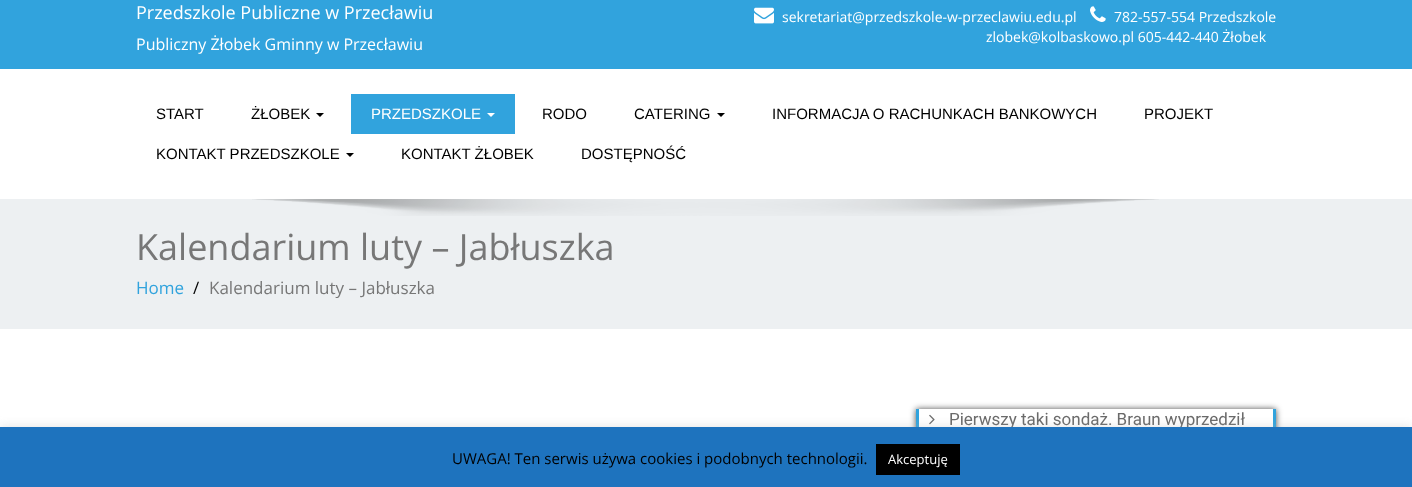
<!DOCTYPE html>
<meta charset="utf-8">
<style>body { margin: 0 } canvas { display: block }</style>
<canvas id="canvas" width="1412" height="487"></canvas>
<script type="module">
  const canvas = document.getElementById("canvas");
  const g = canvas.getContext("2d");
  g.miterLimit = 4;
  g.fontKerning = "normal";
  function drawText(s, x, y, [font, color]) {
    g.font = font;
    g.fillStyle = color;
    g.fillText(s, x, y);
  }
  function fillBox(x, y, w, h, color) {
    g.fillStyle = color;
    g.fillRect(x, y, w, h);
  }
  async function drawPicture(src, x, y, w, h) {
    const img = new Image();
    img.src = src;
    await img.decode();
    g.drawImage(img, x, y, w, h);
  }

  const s1 = ["18px Open Sans", "#FFFFFF"];
  const s2 = ["16px Open Sans", "#FFFFFF"];
  const s3 = ["14px Open Sans", "#FFFFFF"];
  const s4 = ["15px Liberation Sans", "#000000"];
  const s5 = ["15px Liberation Sans", "#FFFFFF"];
  const s6 = ["36px Open Sans", "#777777"];
  const s7 = ["17px Open Sans", "#31A3DD"];
  const s8 = ["17px Open Sans", "#000000"];
  const s9 = ["17px Open Sans", "#777777"];
  const s10 = ["17px Roboto", "#6A6A6A"];
  const s11 = ["15px Open Sans", "#000000"];
  const s12 = ["13px Open Sans", "#FFFFFF"];

  fillBox(0, 0, 1412, 487, "#FFFFFF");
  fillBox(0, 0, 1412, 69, "#31A3DD");
  drawText("Przedszkole Publiczne w Przecławiu", 136, 19, s1);
  drawText("Publiczny Żłobek Gminny w Przecławiu", 136, 50, s2);
  await drawPicture("pic1.png", 754, 7, 20, 17);
  drawText("sekretariat@przedszkole-w-przeclawiu.edu.pl", 782, 22, s3);
  await drawPicture("pic2.png", 1090, 6, 16, 16);
  drawText("782-557-554 Przedszkole", 1114, 22, s3);
  drawText("zlobek@kolbaskowo.pl 605-442-440 Żłobek", 986, 42, s3);
  drawText("START", 156, 119, s4);
  drawText("ŻŁOBEK", 251, 119, s4);
  g.beginPath();
  g.moveTo(316, 113);
  g.lineTo(324, 113);
  g.lineTo(320, 117);
  g.closePath();
  g.fill();
  fillBox(351, 94, 164, 40, "#31A3DD");
  drawText("PRZEDSZKOLE", 371, 119, s5);
  g.beginPath();
  g.moveTo(487, 113);
  g.lineTo(495, 113);
  g.lineTo(491, 117);
  g.closePath();
  g.fill();
  drawText("RODO", 542, 119, s4);
  drawText("CATERING", 634, 119, s4);
  g.beginPath();
  g.moveTo(717, 113);
  g.lineTo(725, 113);
  g.lineTo(721, 117);
  g.closePath();
  g.fill();
  drawText("INFORMACJA O RACHUNKACH BANKOWYCH", 772, 119, s4);
  drawText("PROJEKT", 1144, 119, s4);
  drawText("KONTAKT PRZEDSZKOLE", 156, 159, s4);
  g.beginPath();
  g.moveTo(346, 153);
  g.lineTo(354, 153);
  g.lineTo(350, 157);
  g.closePath();
  g.fill();
  drawText("KONTAKT ŻŁOBEK", 401, 159, s4);
  drawText("DOSTĘPNOŚĆ", 581, 159, s4);
  fillBox(0, 199, 1412, 130, "#EDF0F2");
  await drawPicture("pic3.png", 252, 199, 907, 17);
  drawText("Kalendarium luty – Jabłuszka", 136, 260, s6);
  drawText("Home", 136, 294, s7);
  drawText("/", 193, 294, s8);
  drawText("Kalendarium luty – Jabłuszka", 209, 294, s9);
  g.save();
  g.beginPath();
  g.moveTo(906, 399);
  g.lineTo(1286, 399);
  g.lineTo(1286, 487);
  g.lineTo(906, 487);
  g.closePath();
  g.moveTo(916, 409);
  g.lineTo(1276, 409);
  g.lineTo(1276, 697);
  g.lineTo(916, 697);
  g.closePath();
  g.clip("evenodd");
  g.fillStyle = "rgba(0, 0, 0, 0.7)";
  g.filter = "blur(3px)";
  g.beginPath();
  g.rect(916, 409, 360, 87);
  g.fill();
  g.filter = "none";
  g.restore();
  fillBox(1273, 409, 3, 18, "#31A3DD");
  fillBox(916, 409, 3, 18, "#31A3DD");
  await drawPicture("pic4.png", 929, 414, 6, 11);
  drawText("Pierwszy taki sondaż. Braun wyprzedził", 949, 425, s10);
  g.fillStyle = "rgba(172, 171, 171, 0.3)";
  g.filter = "blur(5px)";
  g.beginPath();
  g.rect(0, 426, 1412, 60);
  g.fill();
  g.filter = "none";
  fillBox(0, 427, 1412, 60, "#1E73BE");
  drawText("UWAGA! Ten serwis używa cookies i podobnych technologii.", 452, 464, s11);
  fillBox(876, 444, 84, 31, "#000000");
  drawText("Akceptuję", 888, 464, s12);
</script>
